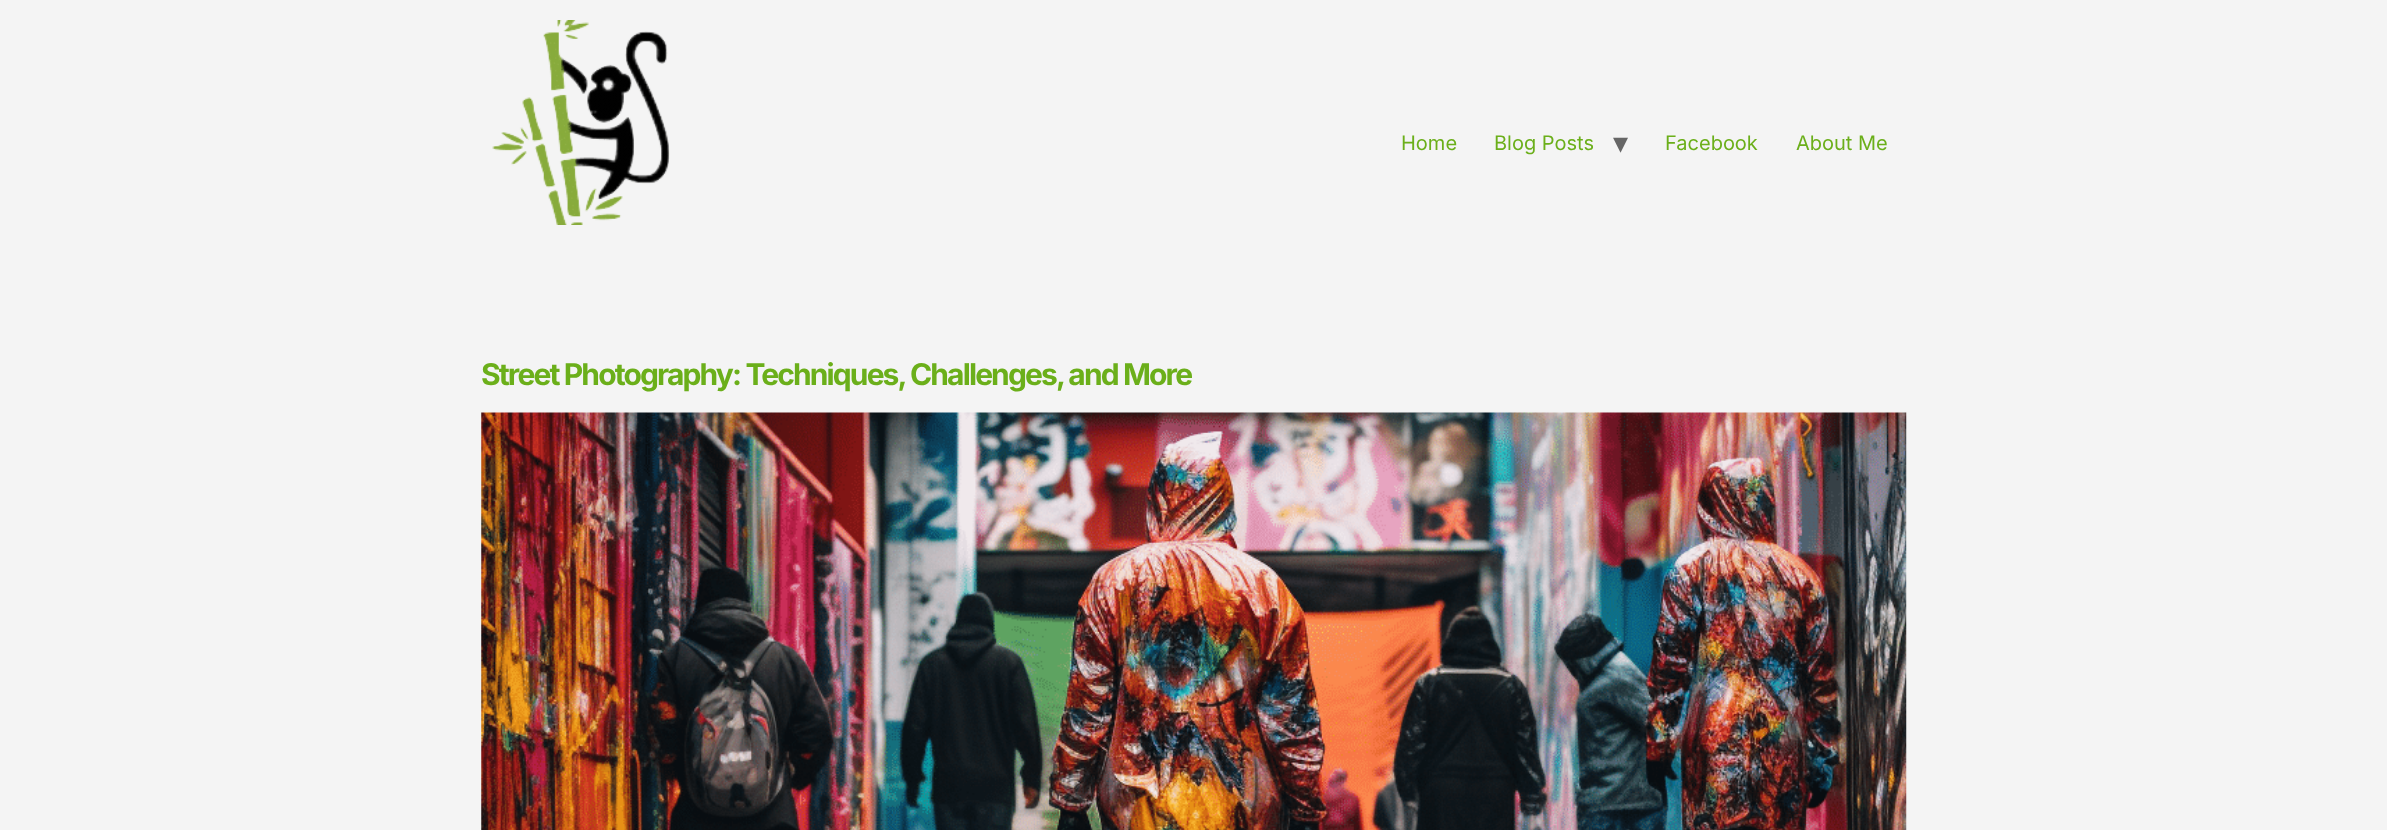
<!DOCTYPE html>
<meta charset="utf-8">
<style>body { margin: 0 } canvas { display: block }</style>
<canvas id="canvas" width="2387" height="830"></canvas>
<script type="module">
  const canvas = document.getElementById("canvas");
  const g = canvas.getContext("2d");
  g.miterLimit = 4;
  g.fontKerning = "normal";
  function drawText(s, x, y, [font, color]) {
    g.font = font;
    g.fillStyle = color;
    g.fillText(s, x, y);
  }
  function fillBox(x, y, w, h, color) {
    g.fillStyle = color;
    g.fillRect(x, y, w, h);
  }
  async function drawPicture(src, x, y, w, h) {
    const img = new Image();
    img.src = src;
    await img.decode();
    g.drawImage(img, x, y, w, h);
  }

  const s1 = ["20px Inter", "#6BAF1A"];
  const s2 = ["30px DejaVu Sans", "#666666"];
  const s3 = ["bold 30px Inter", "#6BAF1A"];

  fillBox(0, 0, 2387, 830, "#F4F4F4");
  await drawPicture("pic1.png", 492, 20, 178, 205);
  drawText("Home", 1401, 150, s1);
  drawText("Blog Posts", 1494, 150, s1);
  drawText("▾", 1613, 153, s2);
  drawText("Facebook", 1665, 150, s1);
  drawText("About Me", 1796, 150, s1);
  g.letterSpacing = "-1.88px";
  drawText("Street Photography: Techniques, Challenges, and More", 481, 385, s3);
  await drawPicture("pic2.png", 481, 412, 1426, 418);
</script>
